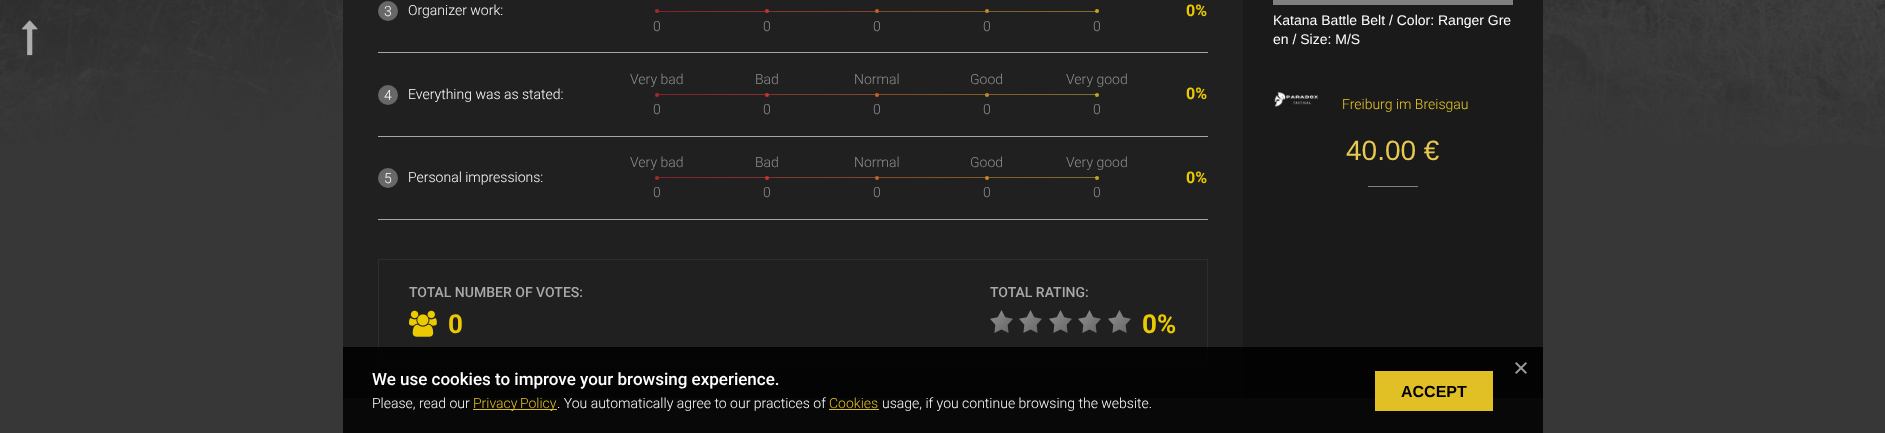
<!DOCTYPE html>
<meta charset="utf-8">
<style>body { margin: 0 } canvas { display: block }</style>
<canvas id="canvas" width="1885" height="433"></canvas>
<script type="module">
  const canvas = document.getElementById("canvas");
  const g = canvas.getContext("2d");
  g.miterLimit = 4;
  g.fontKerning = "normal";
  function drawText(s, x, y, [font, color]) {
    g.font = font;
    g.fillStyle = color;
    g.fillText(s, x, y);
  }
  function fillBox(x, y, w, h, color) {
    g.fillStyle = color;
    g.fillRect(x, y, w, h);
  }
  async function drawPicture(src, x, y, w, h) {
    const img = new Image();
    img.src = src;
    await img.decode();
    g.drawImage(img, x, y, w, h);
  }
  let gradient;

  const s1 = ["300 14px Roboto", "#FFFFFF"];
  const s2 = ["bold 16px Roboto", "#ECCA00"];
  const s3 = ["300 14px Roboto", "#8E8E8E"];
  const s4 = ["500 14px Roboto", "#A9A9A9"];
  const s5 = ["bold 26px Roboto", "#ECCA00"];
  const s6 = ["14px Liberation Sans", "#FFFFFF"];
  const s7 = ["300 14px Roboto", "#EBC928"];
  const s8 = ["28px Liberation Sans", "#E6C94E"];
  const s9 = ["500 17px Roboto", "#FFFFFF"];
  const s10 = ["300 14px Roboto", "#E1C026"];
  const s11 = ["bold 16px Liberation Sans", "#000000"];

  fillBox(0, 0, 1885, 433, "#373737");
  await drawPicture("pic1.png", 0, 0, 1885, 145);
  await drawPicture("pic2.png", 22, 20, 16, 36);
  fillBox(343, 0, 900, 398, "#202020");
  fillBox(1243, 0, 300, 398, "#1A1A1A");
  fillBox(378, 52, 830, 1, "#A6A6A6");
  g.fillStyle = "#686868";
  g.beginPath();
  g.arc(388, 11, 10, 0, Math.PI * 2);
  g.fill();
  drawText("3", 384, 16, s1);
  drawText("Organizer work:", 408, 15, s1);
  drawText("0%", 1186, 16, s2);
  gradient = g.createLinearGradient(657, 12, 1097, 11);
  gradient.addColorStop(0, "#83202F");
  gradient.addColorStop(1, "#807024");
  g.fillStyle = gradient;
  g.fillRect(657, 11, 440, 1);
  g.fillStyle = "#A32A2B";
  g.beginPath();
  g.arc(657, 11, 2, 0, Math.PI * 2);
  g.fill();
  drawText("0", 653, 31, s3);
  g.fillStyle = "#C33532";
  g.beginPath();
  g.arc(767, 11, 2, 0, Math.PI * 2);
  g.fill();
  drawText("0", 763, 31, s3);
  g.fillStyle = "#C3602B";
  g.beginPath();
  g.arc(877, 11, 2, 0, Math.PI * 2);
  g.fill();
  drawText("0", 873, 31, s3);
  g.fillStyle = "#C38827";
  g.beginPath();
  g.arc(987, 11, 2, 0, Math.PI * 2);
  g.fill();
  drawText("0", 983, 31, s3);
  g.fillStyle = "#C1A524";
  g.beginPath();
  g.arc(1097, 11, 2, 0, Math.PI * 2);
  g.fill();
  drawText("0", 1093, 31, s3);
  fillBox(378, 136, 830, 1, "#A6A6A6");
  g.fillStyle = "#686868";
  g.beginPath();
  g.arc(388, 95, 10, 0, Math.PI * 2);
  g.fill();
  drawText("4", 384, 100, s1);
  drawText("Everything was as stated:", 408, 99, s1);
  gradient = g.createLinearGradient(657, 95, 1097, 94);
  gradient.addColorStop(0, "#83202F");
  gradient.addColorStop(1, "#807024");
  g.fillStyle = gradient;
  g.fillRect(657, 94, 440, 1);
  drawText("Very bad", 630, 84, s3);
  g.fillStyle = "#A32A2B";
  g.beginPath();
  g.arc(657, 95, 2, 0, Math.PI * 2);
  g.fill();
  drawText("0", 653, 114, s3);
  drawText("Bad", 755, 84, s3);
  g.fillStyle = "#C33532";
  g.beginPath();
  g.arc(767, 95, 2, 0, Math.PI * 2);
  g.fill();
  drawText("0", 763, 114, s3);
  drawText("Normal", 854, 84, s3);
  g.fillStyle = "#C3602B";
  g.beginPath();
  g.arc(877, 95, 2, 0, Math.PI * 2);
  g.fill();
  drawText("0", 873, 114, s3);
  drawText("Good", 970, 84, s3);
  g.fillStyle = "#C38827";
  g.beginPath();
  g.arc(987, 95, 2, 0, Math.PI * 2);
  g.fill();
  drawText("0", 983, 114, s3);
  drawText("Very good", 1066, 84, s3);
  g.fillStyle = "#C1A524";
  g.beginPath();
  g.arc(1097, 95, 2, 0, Math.PI * 2);
  g.fill();
  drawText("0", 1093, 114, s3);
  drawText("0%", 1186, 99, s2);
  fillBox(378, 219, 830, 1, "#A6A6A6");
  g.fillStyle = "#686868";
  g.beginPath();
  g.arc(388, 178, 10, 0, Math.PI * 2);
  g.fill();
  drawText("5", 384, 183, s1);
  drawText("Personal impressions:", 408, 182, s1);
  gradient = g.createLinearGradient(657, 178, 1097, 178);
  gradient.addColorStop(0, "#83202F");
  gradient.addColorStop(1, "#807024");
  g.fillStyle = gradient;
  g.fillRect(657, 177, 440, 1);
  drawText("Very bad", 630, 167, s3);
  g.fillStyle = "#A32A2B";
  g.beginPath();
  g.arc(657, 178, 2, 0, Math.PI * 2);
  g.fill();
  drawText("0", 653, 197, s3);
  drawText("Bad", 755, 167, s3);
  g.fillStyle = "#C33532";
  g.beginPath();
  g.arc(767, 178, 2, 0, Math.PI * 2);
  g.fill();
  drawText("0", 763, 197, s3);
  drawText("Normal", 854, 167, s3);
  g.fillStyle = "#C3602B";
  g.beginPath();
  g.arc(877, 178, 2, 0, Math.PI * 2);
  g.fill();
  drawText("0", 873, 197, s3);
  drawText("Good", 970, 167, s3);
  g.fillStyle = "#C38827";
  g.beginPath();
  g.arc(987, 178, 2, 0, Math.PI * 2);
  g.fill();
  drawText("0", 983, 197, s3);
  drawText("Very good", 1066, 167, s3);
  g.fillStyle = "#C1A524";
  g.beginPath();
  g.arc(1097, 178, 2, 0, Math.PI * 2);
  g.fill();
  drawText("0", 1093, 197, s3);
  drawText("0%", 1186, 183, s2);
  g.strokeStyle = "#2D2D2D";
  g.strokeRect(378.5, 259.5, 829, 108);
  drawText("TOTAL NUMBER OF VOTES:", 409, 297, s4);
  await drawPicture("pic3.png", 409, 310, 28, 27);
  drawText("0", 448, 333, s5);
  drawText("TOTAL RATING:", 990, 297, s4);
  await drawPicture("pic4.png", 990, 310, 23, 23);
  await drawPicture("pic4.png", 1019, 310, 23, 23);
  await drawPicture("pic4.png", 1049, 310, 23, 23);
  await drawPicture("pic4.png", 1078, 310, 23, 23);
  await drawPicture("pic4.png", 1108, 310, 23, 23);
  drawText("0%", 1142, 333, s5);
  fillBox(1273, 0, 240, 5, "#808080");
  drawText("Katana Battle Belt / Color: Ranger Gre", 1273, 25, s6);
  drawText("en / Size: M/S", 1273, 44, s6);
  await drawPicture("pic5.png", 1274, 91, 45, 16);
  drawText("Freiburg im Breisgau", 1342, 109, s7);
  drawText("40.00 €", 1346, 160, s8);
  fillBox(1368, 186, 50, 1, "#808080");
  fillBox(343, 347, 1200, 86, "rgba(0, 0, 0, 0.85)");
  await drawPicture("pic6.png", 1515, 362, 12, 12);
  drawText("We use cookies to improve your browsing experience.", 372, 385, s9);
  drawText("Please, read our", 372, 408, s1);
  fillBox(473, 409, 84, 1, "#E1C026");
  g.wordSpacing = "-1px";
  drawText("Privacy Policy", 473, 408, s10);
  g.wordSpacing = "0px";
  drawText(". You automatically agree to our practices of", 557, 408, s1);
  drawText("Cookies", 829, 408, s10);
  fillBox(829, 409, 50, 1, "#E1C026");
  drawText("usage, if you continue browsing the website.", 882, 408, s1);
  fillBox(1375, 371, 118, 40, "#E1C026");
  drawText("ACCEPT", 1401, 397, s11);
</script>
